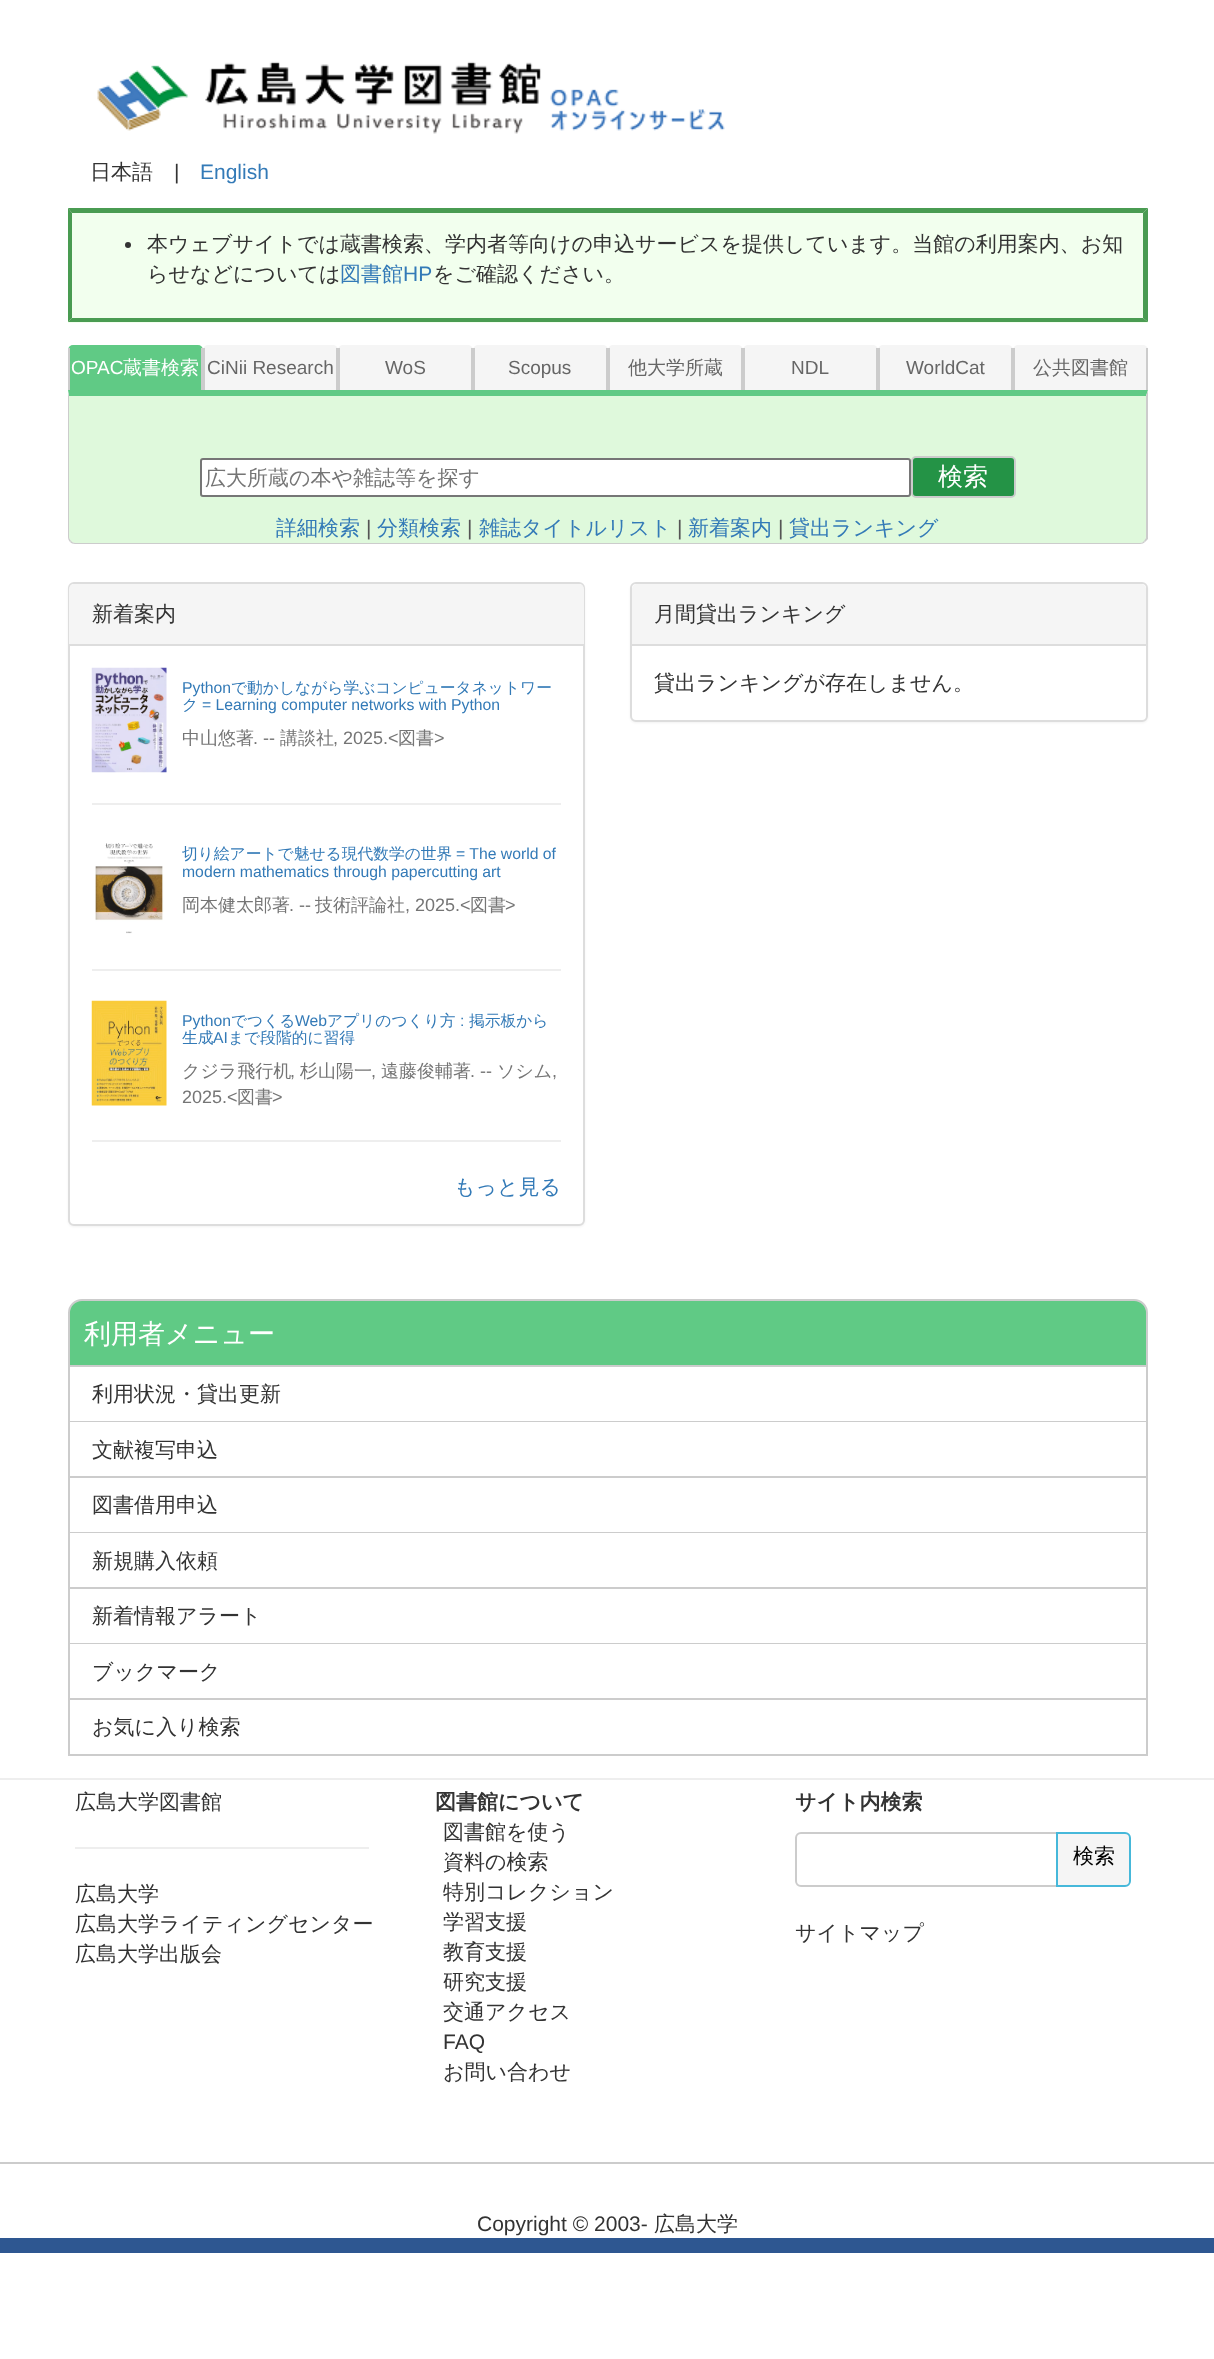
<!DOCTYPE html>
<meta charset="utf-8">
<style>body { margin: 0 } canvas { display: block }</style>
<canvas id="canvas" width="1214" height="2359"></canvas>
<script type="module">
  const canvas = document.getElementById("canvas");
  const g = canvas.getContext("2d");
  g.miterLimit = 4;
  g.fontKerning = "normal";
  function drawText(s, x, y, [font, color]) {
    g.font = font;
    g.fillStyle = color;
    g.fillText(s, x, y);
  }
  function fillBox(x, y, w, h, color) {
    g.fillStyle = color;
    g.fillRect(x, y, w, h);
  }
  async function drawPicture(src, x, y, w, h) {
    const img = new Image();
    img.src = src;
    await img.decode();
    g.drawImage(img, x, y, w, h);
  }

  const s1 = ["500 21px WenQuanYi Zen Hei", "#333333"];
  const s2 = ["21px Liberation Sans", "#333333"];
  const s3 = ["21px Liberation Sans", "#337AB7"];
  const s4 = ["500 21px WenQuanYi Zen Hei", "#337AB7"];
  const s5 = ["19px Liberation Sans", "#FFFFFF"];
  const s6 = ["500 19px WenQuanYi Zen Hei", "#FFFFFF"];
  const s7 = ["19px Liberation Sans", "#666666"];
  const s8 = ["500 19px WenQuanYi Zen Hei", "#666666"];
  const s9 = ["500 21px WenQuanYi Zen Hei", "#757575"];
  const s10 = ["500 25px WenQuanYi Zen Hei", "#FFFFFF"];
  const s11 = ["21px Liberation Sans", "#555555"];
  const s12 = ["15.75px Liberation Sans", "#337AB7"];
  const s13 = ["500 15.75px WenQuanYi Zen Hei", "#337AB7"];
  const s14 = ["500 18px WenQuanYi Zen Hei", "#757575"];
  const s15 = ["18px Liberation Sans", "#757575"];
  const s16 = ["500 27px WenQuanYi Zen Hei", "#FFFFFF"];
  const s17 = ["bold 21px WenQuanYi Zen Hei", "#333333"];
  const s18 = ["500 21px WenQuanYi Zen Hei", "#000000"];

  fillBox(0, 0, 1214, 2359, "#FFFFFF");
  fillBox(0, 2238, 1214, 15, "#2E5791");
  await drawPicture("pic1.png", 97, 61, 628, 73);
  drawText("日本語", 90, 179, s1);
  drawText("|", 174, 179, s2);
  drawText("English", 200, 179, s3);
  fillBox(68, 209, 1080, 114, "#F2FFEE");
  g.fillStyle = "#4A9C52";
  g.beginPath();
  g.moveTo(68, 208);
  g.lineTo(1148, 208);
  g.lineTo(1143, 213);
  g.lineTo(72, 213);
  g.closePath();
  g.fill();
  g.fillStyle = "#499B51";
  g.beginPath();
  g.moveTo(1148, 208);
  g.lineTo(1148, 322);
  g.lineTo(1143, 318);
  g.lineTo(1143, 213);
  g.closePath();
  g.fill();
  g.fillStyle = "#4A9C52";
  g.beginPath();
  g.moveTo(1148, 322);
  g.lineTo(68, 322);
  g.lineTo(72, 318);
  g.lineTo(1143, 318);
  g.closePath();
  g.fill();
  g.fillStyle = "#499B51";
  g.beginPath();
  g.moveTo(68, 322);
  g.lineTo(68, 208);
  g.lineTo(72, 213);
  g.lineTo(72, 318);
  g.closePath();
  g.fill();
  g.fillStyle = "#333333";
  g.beginPath();
  g.arc(128, 245, 3, 0, Math.PI * 2);
  g.fill();
  drawText("本ウェブサイトでは蔵書検索、学内者等向けの申込サービスを提供しています。当館の利用案内、お知", 147, 251, s1);
  drawText("らせなどについては", 147, 281, s1);
  drawText("図書館", 340, 281, s4);
  drawText("HP", 403, 281, s3);
  drawText("をご確認ください。", 433, 281, s1);
  g.fillStyle = "#60CA85";
  g.beginPath();
  g.roundRect(68, 345, 135, 45, [5, 5, 0, 0]);
  g.fill();
  fillBox(201, 348, 2, 42, "#CCCCCC");
  fillBox(68, 348, 2, 42, "#CCCCCC");
  drawText("OPAC", 71, 374, s5);
  drawText("蔵書検索", 123, 374, s6);
  g.fillStyle = "#F5F5F5";
  g.beginPath();
  g.roundRect(203, 345, 135, 45, [5, 5, 0, 0]);
  g.fill();
  fillBox(336, 348, 2, 42, "#CCCCCC");
  fillBox(203, 348, 2, 42, "#CCCCCC");
  drawText("CiNii Research", 207, 374, s7);
  g.fillStyle = "#F5F5F5";
  g.beginPath();
  g.roundRect(338, 345, 135, 45, [5, 5, 0, 0]);
  g.fill();
  fillBox(471, 348, 2, 42, "#CCCCCC");
  fillBox(338, 348, 2, 42, "#CCCCCC");
  drawText("WoS", 385, 374, s7);
  g.fillStyle = "#F5F5F5";
  g.beginPath();
  g.roundRect(473, 345, 135, 45, [5, 5, 0, 0]);
  g.fill();
  fillBox(606, 348, 2, 42, "#CCCCCC");
  fillBox(473, 348, 2, 42, "#CCCCCC");
  drawText("Scopus", 508, 374, s7);
  g.fillStyle = "#F5F5F5";
  g.beginPath();
  g.roundRect(608, 345, 135, 45, [5, 5, 0, 0]);
  g.fill();
  fillBox(741, 348, 2, 42, "#CCCCCC");
  fillBox(608, 348, 2, 42, "#CCCCCC");
  drawText("他大学所蔵", 628, 374, s8);
  g.fillStyle = "#F5F5F5";
  g.beginPath();
  g.roundRect(743, 345, 135, 45, [5, 5, 0, 0]);
  g.fill();
  fillBox(876, 348, 2, 42, "#CCCCCC");
  fillBox(743, 348, 2, 42, "#CCCCCC");
  drawText("NDL", 791, 374, s7);
  g.fillStyle = "#F5F5F5";
  g.beginPath();
  g.roundRect(878, 345, 135, 45, [5, 5, 0, 0]);
  g.fill();
  fillBox(1011, 348, 2, 42, "#CCCCCC");
  fillBox(878, 348, 2, 42, "#CCCCCC");
  drawText("WorldCat", 906, 374, s7);
  g.fillStyle = "#F5F5F5";
  g.beginPath();
  g.roundRect(1013, 345, 135, 45, [5, 5, 0, 0]);
  g.fill();
  fillBox(1146, 348, 2, 42, "#CCCCCC");
  fillBox(1013, 348, 2, 42, "#CCCCCC");
  drawText("公共図書館", 1033, 374, s8);
  g.fillStyle = "#DFF9DC";
  g.beginPath();
  g.roundRect(69, 396, 1077, 147, [0, 0, 6, 6]);
  g.fill();
  g.fillStyle = "#60CA85";
  g.beginPath();
  g.moveTo(68, 390);
  g.lineTo(69, 396);
  g.lineTo(1146, 396);
  g.lineTo(1148, 390);
  g.closePath();
  g.fill();
  g.fillStyle = "#CCCCCC";
  g.beginPath();
  g.moveTo(1148, 390);
  g.lineTo(1148, 539);
  g.lineTo(1145, 542);
  g.lineTo(1144, 541);
  g.lineTo(1146, 538);
  g.lineTo(1146, 396);
  g.closePath();
  g.fill();
  g.beginPath();
  g.moveTo(1145, 542);
  g.bezierCurveTo(1144, 543, 1142, 544, 1140, 544);
  g.lineTo(75, 544);
  g.bezierCurveTo(73, 544, 71, 543, 70, 542);
  g.lineTo(71, 541);
  g.bezierCurveTo(72, 542, 74, 543, 75, 543);
  g.lineTo(1140, 543);
  g.bezierCurveTo(1142, 543, 1143, 542, 1144, 541);
  g.closePath();
  g.fill();
  g.beginPath();
  g.moveTo(69, 396);
  g.lineTo(68, 392);
  g.lineTo(68, 537);
  g.bezierCurveTo(68, 539, 69, 541, 70, 542);
  g.lineTo(71, 541);
  g.bezierCurveTo(70, 540, 69, 538, 69, 537);
  g.closePath();
  g.fill();
  g.fillStyle = "#FFFFFF";
  g.beginPath();
  g.roundRect(201, 459, 709, 37, 2);
  g.fill();
  g.strokeStyle = "#767676";
  g.lineWidth = 2;
  g.stroke();
  drawText("広大所蔵の本や雑誌等を探す", 205, 485, s9);
  g.fillStyle = "#249346";
  g.beginPath();
  g.roundRect(912, 457, 103, 40, 4);
  g.fill();
  g.strokeStyle = "#CCCCCC";
  g.stroke();
  drawText("検索", 938, 485, s10);
  drawText("詳細検索", 276, 535, s4);
  drawText("|", 366, 535, s11);
  drawText("分類検索", 377, 535, s4);
  drawText("|", 467, 535, s11);
  drawText("雑誌タイトルリスト", 479, 535, s4);
  drawText("|", 677, 535, s11);
  drawText("新着案内", 688, 535, s4);
  drawText("|", 778, 535, s11);
  drawText("貸出ランキング", 789, 535, s4);
  g.fillStyle = "rgba(0, 0, 0, 0.05)";
  g.filter = "blur(1px)";
  g.beginPath();
  g.roundRect(68, 584, 517, 643, 6);
  g.fill();
  g.filter = "none";
  g.fillStyle = "#FFFFFF";
  g.beginPath();
  g.roundRect(69, 583, 515, 642, 5);
  g.fill();
  g.strokeStyle = "#DDDDDD";
  g.stroke();
  g.fillStyle = "#F5F5F5";
  g.beginPath();
  g.roundRect(69, 584, 515, 61, [5, 5, 0, 0]);
  g.fill();
  fillBox(69, 644, 515, 2, "#DDDDDD");
  drawText("新着案内", 92, 621, s1);
  await drawPicture("pic2.png", 91, 667, 76, 106);
  drawText("Python", 182, 693, s12);
  drawText("で動かしながら学ぶコンピュータネットワー", 231, 693, s13);
  drawText("ク", 182, 710, s13);
  drawText("= Learning computer networks with Python", 202, 710, s12);
  drawText("中山悠著", 182, 744, s14);
  drawText(". --", 253, 744, s15);
  drawText("講談社", 280, 744, s14);
  drawText(", 2025.<", 333, 744, s15);
  drawText("図書", 398, 744, s14);
  drawText(">", 434, 744, s15);
  fillBox(92, 803, 469, 2, "#EEEEEE");
  await drawPicture("pic3.png", 95, 843, 69, 91);
  drawText("切り絵アートで魅せる現代数学の世界", 182, 859, s13);
  drawText("= The world of", 456, 859, s12);
  drawText("modern mathematics through papercutting art", 182, 877, s12);
  drawText("岡本健太郎著", 182, 911, s14);
  drawText(". --", 289, 911, s15);
  drawText("技術評論社", 315, 911, s14);
  drawText(", 2025.<", 405, 911, s15);
  drawText("図書", 470, 911, s14);
  drawText(">", 505, 911, s15);
  fillBox(92, 969, 469, 2, "#EEEEEE");
  await drawPicture("pic4.png", 91, 1000, 76, 106);
  drawText("Python", 182, 1026, s12);
  drawText("でつくる", 231, 1026, s13);
  drawText("Web", 295, 1026, s12);
  drawText("アプリのつくり方", 327, 1026, s13);
  drawText(":", 460, 1026, s12);
  drawText("掲示板から", 469, 1026, s13);
  drawText("生成", 182, 1043, s13);
  drawText("AI", 213, 1043, s12);
  drawText("まで段階的に習得", 228, 1043, s13);
  drawText("クジラ飛行机", 182, 1077, s14);
  drawText("杉山陽一", 300, 1077, s14);
  drawText("遠藤俊輔著", 381, 1077, s14);
  drawText(". --", 470, 1077, s15);
  drawText("ソシム", 497, 1077, s14);
  drawText(",", 290, 1077, s15);
  drawText(",", 371, 1077, s15);
  drawText(",", 552, 1077, s15);
  drawText("2025.<", 182, 1103, s15);
  drawText("図書", 237, 1103, s14);
  drawText(">", 272, 1103, s15);
  fillBox(92, 1140, 469, 2, "#EEEEEE");
  drawText("もっと見る", 454, 1194, s4);
  g.fillStyle = "rgba(0, 0, 0, 0.05)";
  g.filter = "blur(1px)";
  g.beginPath();
  g.roundRect(630, 584, 518, 139, 6);
  g.fill();
  g.filter = "none";
  g.fillStyle = "#FFFFFF";
  g.beginPath();
  g.roundRect(631, 583, 516, 138, 5);
  g.fill();
  g.stroke();
  g.fillStyle = "#F5F5F5";
  g.beginPath();
  g.roundRect(632, 584, 514, 61, [5, 5, 0, 0]);
  g.fill();
  fillBox(632, 644, 514, 2, "#DDDDDD");
  drawText("月間貸出ランキング", 654, 621, s1);
  drawText("貸出ランキングが存在しません。", 654, 690, s1);
  g.fillStyle = "#60CA85";
  g.beginPath();
  g.roundRect(69, 1300, 1078, 66, [13, 13, 0, 0]);
  g.fill();
  g.strokeStyle = "#CCCCCC";
  g.stroke();
  drawText("利用者メニュー", 84, 1343, s16);
  fillBox(1146, 1367, 2, 388, "#CCCCCC");
  fillBox(68, 1421, 1080, 1, "#CCCCCC");
  fillBox(68, 1367, 2, 55, "#CCCCCC");
  drawText("利用状況・貸出更新", 92, 1401, s1);
  fillBox(68, 1476, 1080, 2, "#CCCCCC");
  fillBox(68, 1422, 2, 56, "#CCCCCC");
  drawText("文献複写申込", 92, 1457, s1);
  fillBox(68, 1532, 1080, 1, "#CCCCCC");
  fillBox(68, 1478, 2, 55, "#CCCCCC");
  drawText("図書借用申込", 92, 1512, s1);
  fillBox(68, 1587, 1080, 2, "#CCCCCC");
  fillBox(68, 1533, 2, 56, "#CCCCCC");
  drawText("新規購入依頼", 92, 1568, s1);
  fillBox(68, 1643, 1080, 1, "#CCCCCC");
  fillBox(68, 1589, 2, 55, "#CCCCCC");
  drawText("新着情報アラート", 92, 1623, s1);
  fillBox(68, 1698, 1080, 2, "#CCCCCC");
  fillBox(68, 1644, 2, 56, "#CCCCCC");
  drawText("ブックマーク", 92, 1679, s1);
  fillBox(68, 1754, 1080, 2, "#CCCCCC");
  fillBox(68, 1700, 2, 55, "#CCCCCC");
  drawText("お気に入り検索", 92, 1734, s1);
  fillBox(0, 1778, 1214, 2, "#EEEEEE");
  drawText("広島大学図書館", 75, 1809, s1);
  fillBox(75, 1847, 294, 2, "#EEEEEE");
  drawText("広島大学", 75, 1901, s1);
  drawText("広島大学ライティングセンター", 75, 1931, s1);
  drawText("広島大学出版会", 75, 1961, s1);
  drawText("図書館について", 435, 1809, s17);
  drawText("図書館を使う", 443, 1839, s1);
  drawText("資料の検索", 443, 1869, s1);
  drawText("特別コレクション", 443, 1899, s1);
  drawText("学習支援", 443, 1929, s1);
  drawText("教育支援", 443, 1959, s1);
  drawText("研究支援", 443, 1989, s1);
  drawText("交通アクセス", 443, 2019, s1);
  drawText("FAQ", 443, 2049, s2);
  drawText("お問い合わせ", 443, 2079, s1);
  drawText("サイト内検索", 795, 1809, s17);
  g.beginPath();
  g.roundRect(796, 1833, 261, 53, [5, 0, 0, 5]);
  g.stroke();
  g.fillStyle = "#F5F5F5";
  g.beginPath();
  g.roundRect(1057, 1833, 73, 53, [0, 5, 5, 0]);
  g.fill();
  g.strokeStyle = "#46B8DA";
  g.stroke();
  drawText("検索", 1073, 1863, s18);
  drawText("サイトマップ", 795, 1940, s1);
  fillBox(0, 2162, 1214, 2, "#CCCCCC");
  drawText("Copyright © 2003-", 477, 2231, s2);
  drawText("広島大学", 654, 2231, s1);
</script>
